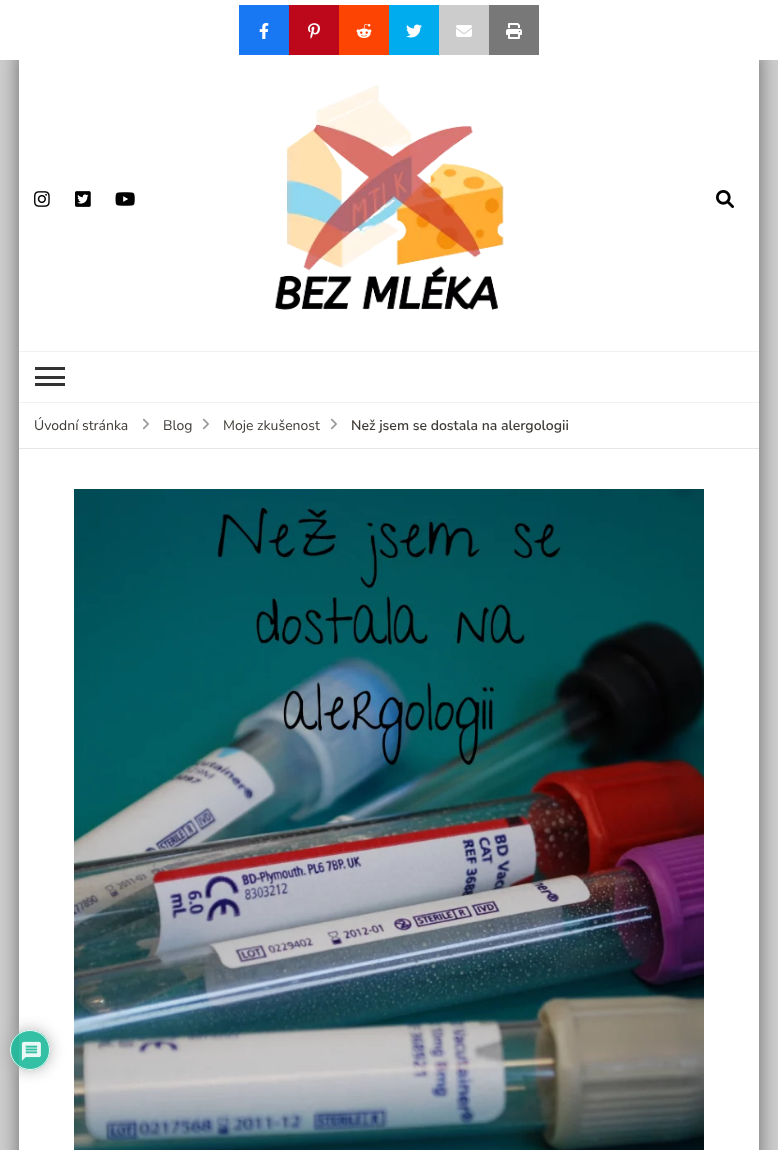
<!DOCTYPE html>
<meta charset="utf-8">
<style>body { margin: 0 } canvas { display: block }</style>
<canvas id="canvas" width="778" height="1150"></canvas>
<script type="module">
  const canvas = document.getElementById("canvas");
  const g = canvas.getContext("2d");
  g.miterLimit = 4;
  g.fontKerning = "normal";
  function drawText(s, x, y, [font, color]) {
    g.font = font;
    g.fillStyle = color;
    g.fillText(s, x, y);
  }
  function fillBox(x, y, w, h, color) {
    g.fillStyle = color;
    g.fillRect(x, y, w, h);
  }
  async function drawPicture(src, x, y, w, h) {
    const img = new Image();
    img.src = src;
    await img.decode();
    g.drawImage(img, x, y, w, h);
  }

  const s1 = ["14px Nunito Sans", "#3F3B36"];
  const s2 = ["600 14px Nunito Sans", "#3F3B36"];

  fillBox(0, 0, 778, 1150, "#CECECE");
  g.fillStyle = "rgba(0, 0, 0, 0.5)";
  g.filter = "blur(10px)";
  g.beginPath();
  g.rect(19, 50, 740, 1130);
  g.fill();
  g.filter = "none";
  fillBox(0, 0, 778, 60, "#FFFFFF");
  fillBox(239, 5, 50, 50, "#1877F2");
  await drawPicture("pic1.png", 259, 23, 10, 16);
  fillBox(289, 5, 50, 50, "#BD081C");
  await drawPicture("pic2.png", 308, 23, 12, 16);
  fillBox(339, 5, 50, 50, "#FE4403");
  await drawPicture("pic3.png", 356, 24, 16, 14);
  fillBox(389, 5, 50, 50, "#00ACED");
  await drawPicture("pic4.png", 406, 24, 16, 14);
  fillBox(439, 5, 50, 50, "#CCCCCC");
  await drawPicture("pic5.png", 456, 25, 16, 12);
  fillBox(489, 5, 50, 50, "#787878");
  await drawPicture("pic6.png", 506, 23, 16, 16);
  fillBox(19, 60, 740, 1090, "#FFFFFF");
  fillBox(19, 402, 740, 1, "#F2F2F2");
  await drawPicture("pic7.png", 34, 191, 16, 16);
  await drawPicture("pic8.png", 75, 191, 16, 16);
  await drawPicture("pic9.png", 115, 192, 20, 14);
  await drawPicture("pic10.png", 274, 84, 230, 226);
  await drawPicture("pic11.png", 716, 190, 18, 18);
  fillBox(19, 351, 740, 1, "#F2F2F2");
  fillBox(35, 367, 30, 3, "#333333");
  fillBox(35, 376, 30, 3, "#333333");
  fillBox(35, 383, 30, 3, "#333333");
  fillBox(19, 448, 740, 1, "#E6E6E6");
  drawText("Úvodní stránka", 34, 430, s1);
  await drawPicture("pic12.png", 143, 418, 6, 12);
  drawText("Blog", 163, 430, s1);
  await drawPicture("pic12.png", 203, 418, 6, 12);
  drawText("Moje zkušenost", 223, 430, s1);
  await drawPicture("pic12.png", 331, 418, 6, 12);
  drawText("Než jsem se dostala na alergologii", 351, 430, s2);
  await drawPicture("pic13.png", 74, 489, 630, 661);
  g.save();
  g.beginPath();
  g.moveTo(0, 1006);
  g.lineTo(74, 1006);
  g.lineTo(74, 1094);
  g.lineTo(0, 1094);
  g.closePath();
  g.moveTo(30, 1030);
  g.bezierCurveTo(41, 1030, 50, 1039, 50, 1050);
  g.bezierCurveTo(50, 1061, 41, 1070, 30, 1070);
  g.bezierCurveTo(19, 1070, 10, 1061, 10, 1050);
  g.bezierCurveTo(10, 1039, 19, 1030, 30, 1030);
  g.closePath();
  g.clip("evenodd");
  g.fillStyle = "rgba(170, 170, 170, 0.9)";
  g.filter = "blur(7.5px)";
  g.beginPath();
  g.roundRect(10, 1030, 40, 40, 20);
  g.fill();
  g.filter = "none";
  g.restore();
  g.fillStyle = "rgba(29, 185, 154, 0.9)";
  g.beginPath();
  g.arc(30, 1050, 20, 0, Math.PI * 2);
  g.fill();
  g.beginPath();
  g.arc(30, 1050, 19.5, 0, Math.PI * 2);
  g.strokeStyle = "rgba(255, 255, 255, 0.9)";
  g.stroke();
  await drawPicture("pic14.png", 21, 1041, 20, 20);
</script>
